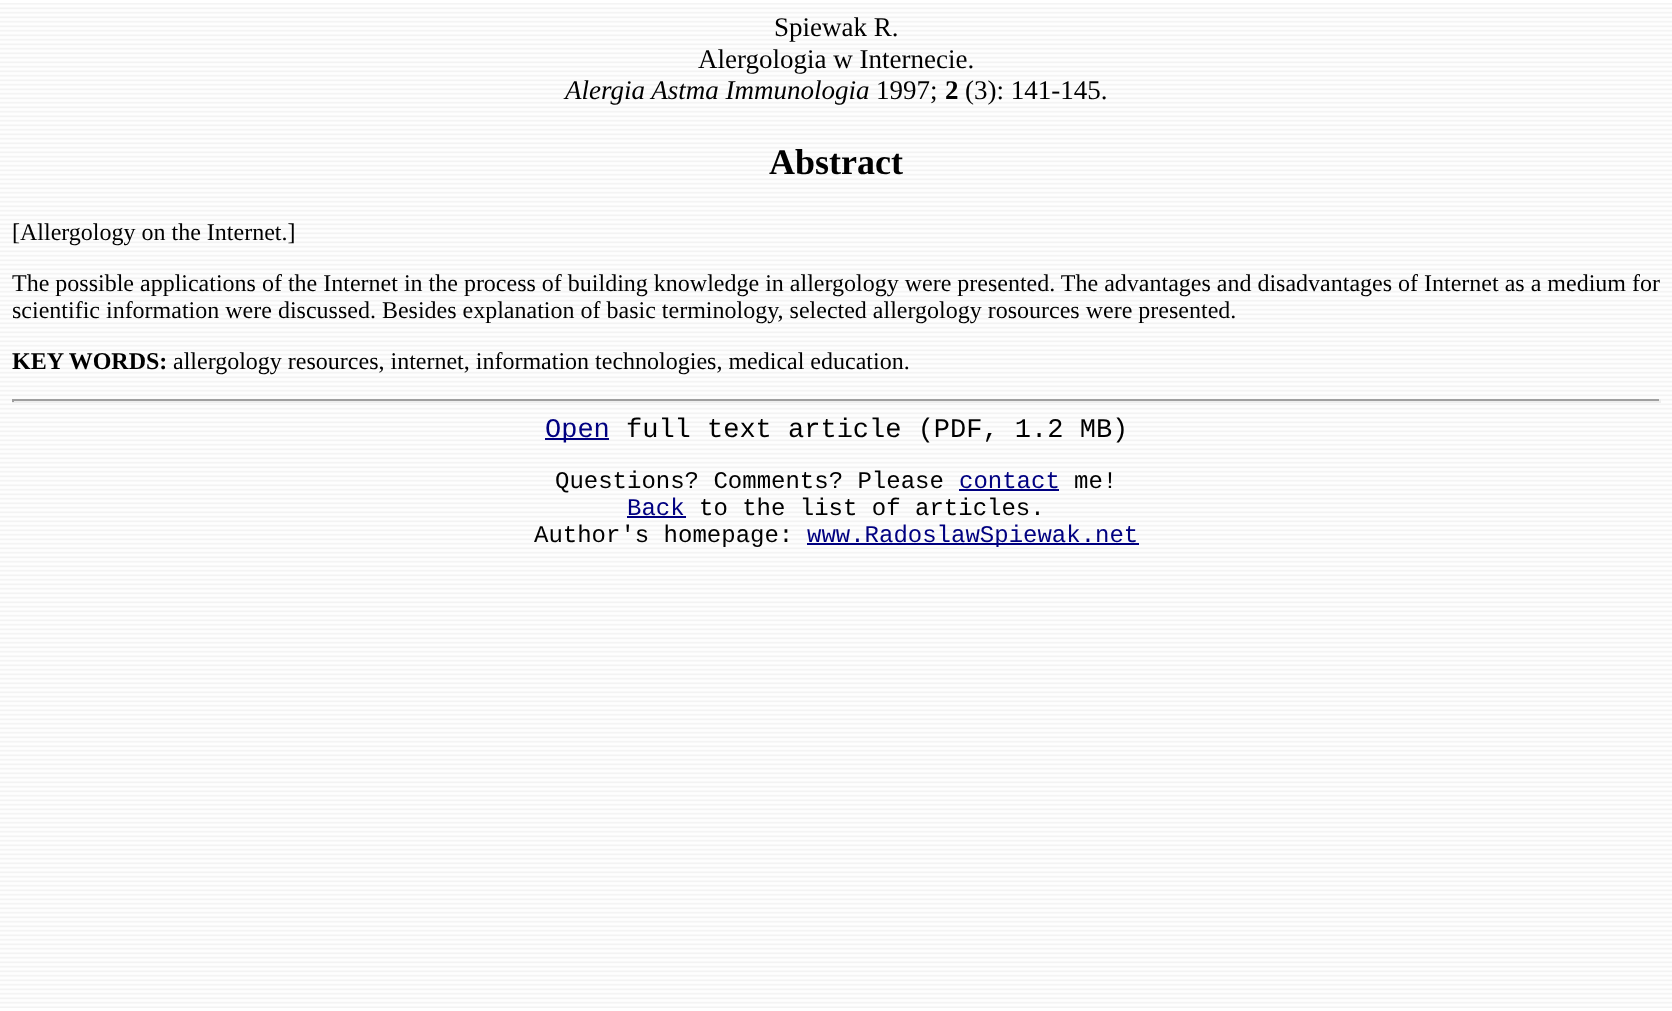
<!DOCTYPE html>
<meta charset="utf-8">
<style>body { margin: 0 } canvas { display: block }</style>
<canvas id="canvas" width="1672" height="1011"></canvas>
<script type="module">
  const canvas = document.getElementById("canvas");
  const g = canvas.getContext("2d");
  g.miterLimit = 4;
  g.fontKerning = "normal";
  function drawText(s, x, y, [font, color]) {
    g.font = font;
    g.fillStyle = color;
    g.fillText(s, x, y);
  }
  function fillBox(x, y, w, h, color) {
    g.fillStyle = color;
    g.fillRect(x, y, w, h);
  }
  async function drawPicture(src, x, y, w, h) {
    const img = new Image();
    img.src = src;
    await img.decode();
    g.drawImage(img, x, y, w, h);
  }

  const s1 = ["27px Liberation Serif", "#000000"];
  const s2 = ["italic 27px Liberation Serif", "#000000"];
  const s3 = ["bold 27px Liberation Serif", "#000000"];
  const s4 = ["bold 36px Liberation Serif", "#000000"];
  const s5 = ["24px Liberation Serif", "#000000"];
  const s6 = ["bold 24px Liberation Serif", "#000000"];
  const s7 = ["27px Liberation Mono", "#000080"];
  const s8 = ["27px Liberation Mono", "#000000"];
  const s9 = ["24px Liberation Mono", "#000000"];
  const s10 = ["24px Liberation Mono", "#000080"];

  fillBox(0, 0, 1672, 1011, "#FFFFFF");
  await drawPicture("pic1.png", 0, 3, 1672, 1005);
  drawText("Spiewak R.", 774, 36, s1);
  drawText("Alergologia w Internecie.", 698, 68, s1);
  drawText("Alergia Astma Immunologia", 565, 99, s2);
  drawText("1997;", 876, 99, s1);
  drawText("2", 945, 99, s3);
  drawText("(3): 141-145.", 965, 99, s1);
  drawText("Abstract", 769, 174, s4);
  drawText("[Allergology on the Internet.]", 12, 240, s5);
  drawText("The possible applications of the Internet in the process of building knowledge in allergology were presented. The advantages and disadvantages of Internet as a medium for", 12, 291, s5);
  drawText("scientific information were discussed. Besides explanation of basic terminology, selected allergology rosources were presented.", 12, 318, s5);
  drawText("KEY WORDS:", 12, 369, s6);
  drawText("allergology resources, internet, information technologies, medical education.", 173, 369, s5);
  fillBox(12, 399, 1649, 2, "#9F9F9F");
  fillBox(1659, 399, 2, 3, "#EEEEEE");
  fillBox(12, 401, 1649, 2, "#EEEEEE");
  fillBox(12, 399, 2, 3, "#9F9F9F");
  fillBox(545, 438, 64, 2, "#000080");
  drawText("Open", 545, 437, s7);
  drawText("full text article (PDF, 1.2 MB)", 626, 437, s8);
  drawText("Questions? Comments? Please", 555, 488, s9);
  drawText("contact", 959, 488, s10);
  fillBox(959, 489, 100, 2, "#000080");
  drawText("me!", 1074, 488, s9);
  drawText("Back", 627, 515, s10);
  fillBox(627, 516, 59, 2, "#000080");
  drawText("to the list of articles.", 699, 515, s9);
  drawText("Author's homepage:", 534, 542, s9);
  fillBox(807, 543, 332, 2, "#000080");
  drawText("www.RadoslawSpiewak.net", 807, 542, s10);
</script>
